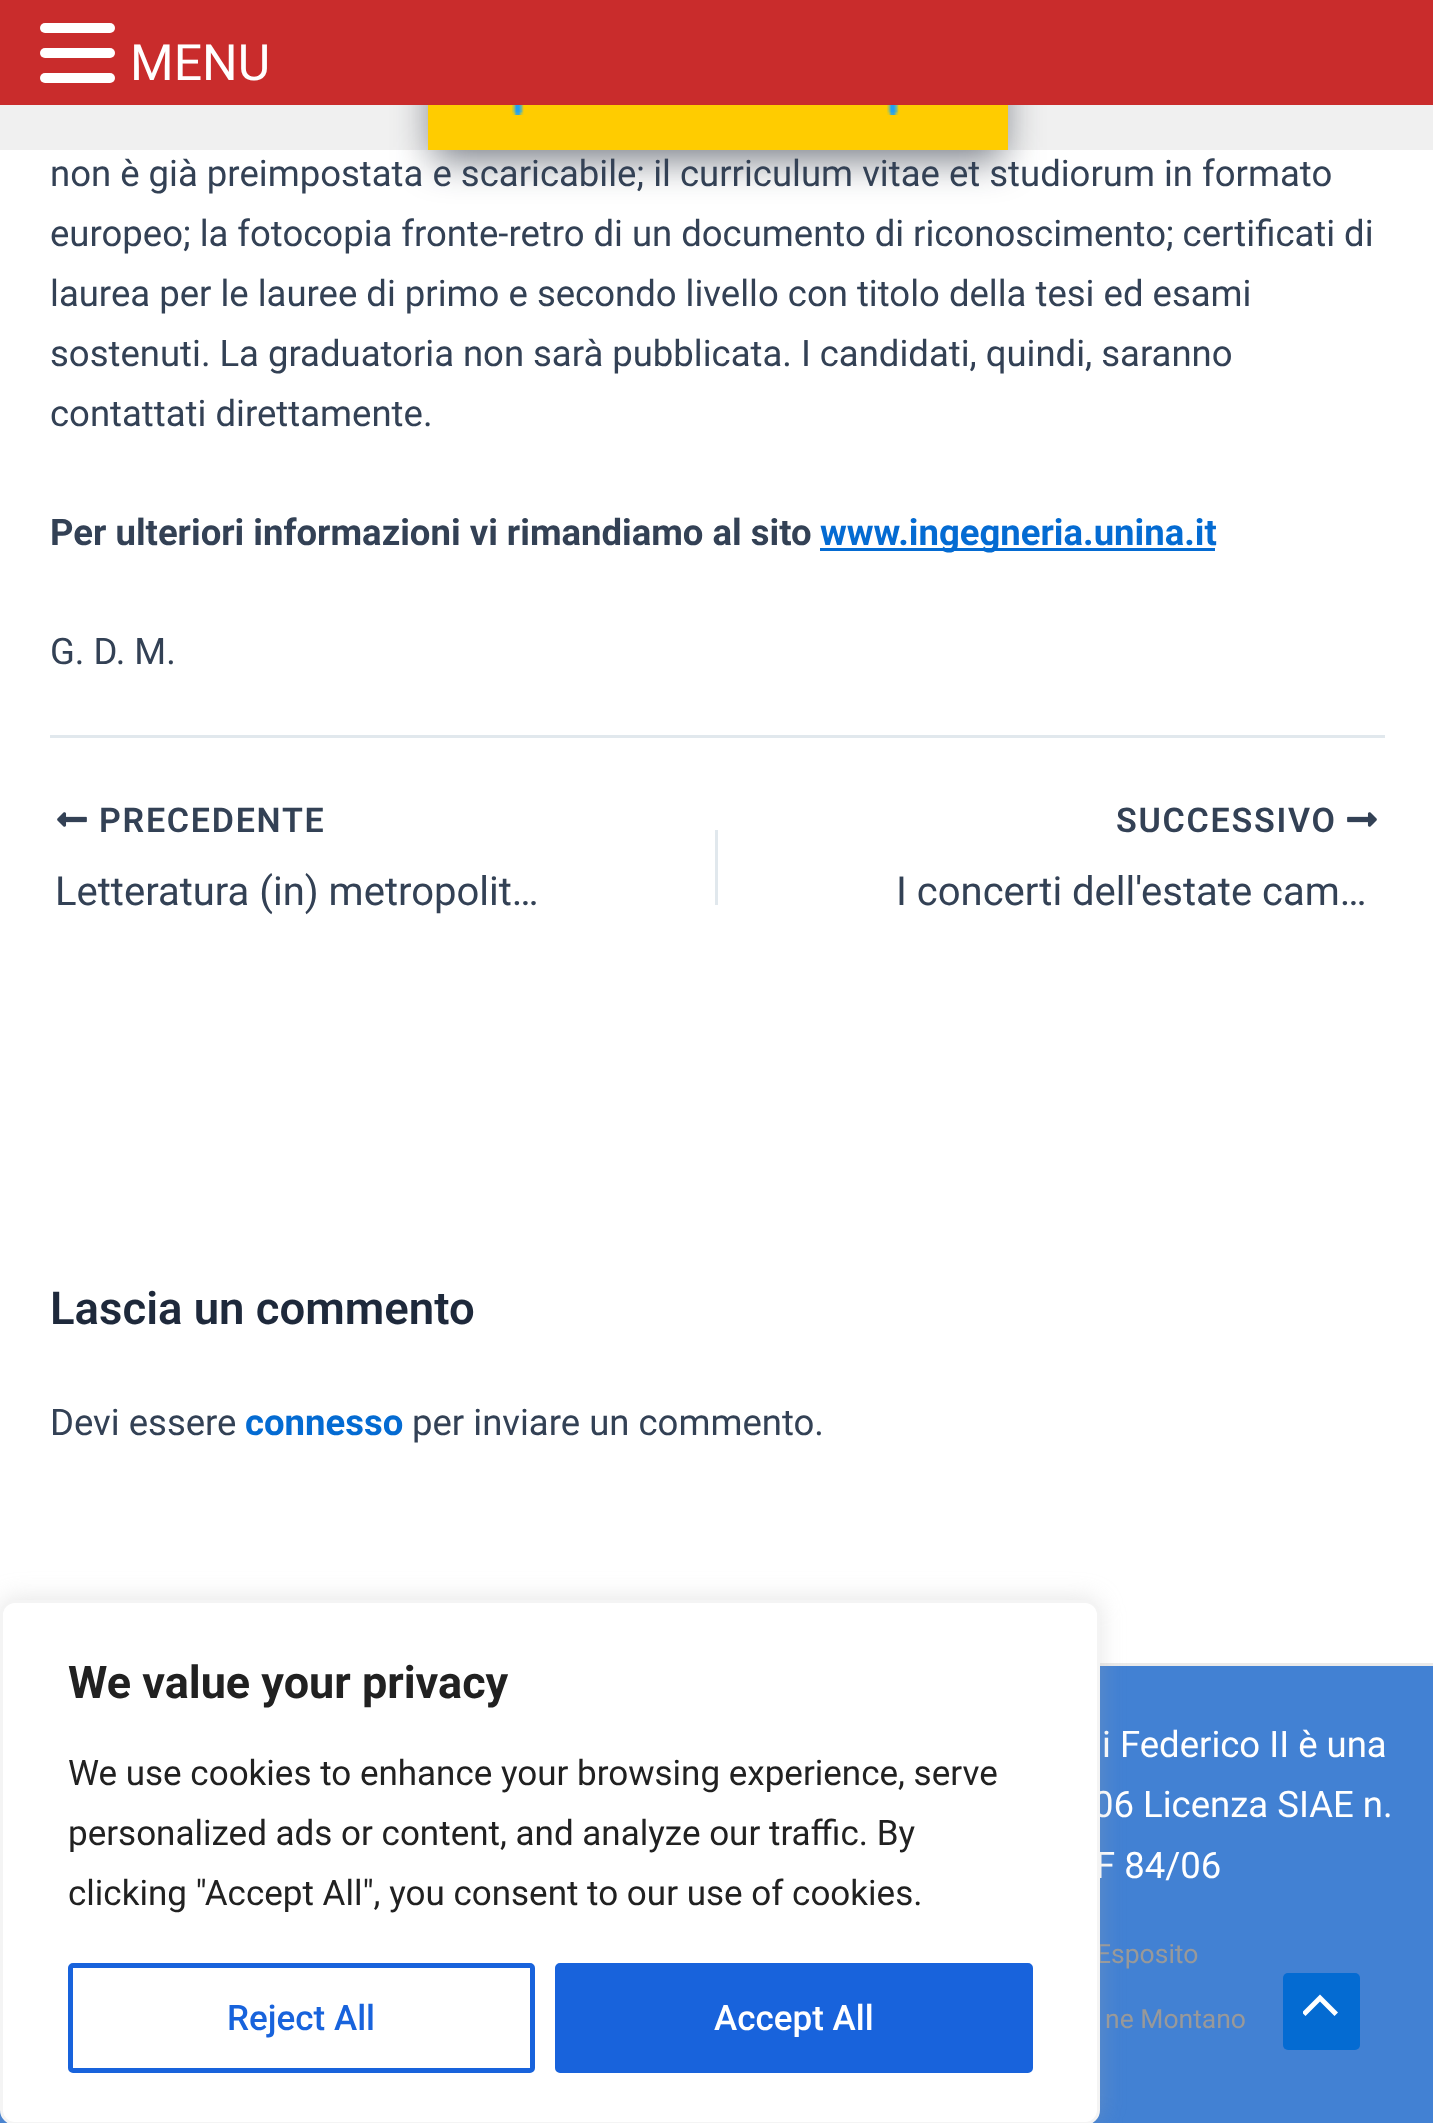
<!DOCTYPE html>
<meta charset="utf-8">
<style>body { margin: 0 } canvas { display: block }</style>
<canvas id="canvas" width="1433" height="2123"></canvas>
<script type="module">
  const canvas = document.getElementById("canvas");
  const g = canvas.getContext("2d");
  g.miterLimit = 4;
  g.fontKerning = "normal";
  function drawText(s, x, y, [font, color]) {
    g.font = font;
    g.fillStyle = color;
    g.fillText(s, x, y);
  }
  function fillBox(x, y, w, h, color) {
    g.fillStyle = color;
    g.fillRect(x, y, w, h);
  }
  function fillRounded(x, y, w, h, r, color) {
    g.fillStyle = color;
    g.beginPath();
    g.roundRect(x, y, w, h, r);
    g.fill();
  }
  async function drawPicture(src, x, y, w, h) {
    const img = new Image();
    img.src = src;
    await img.decode();
    g.drawImage(img, x, y, w, h);
  }

  const s1 = ["50px Roboto", "#FFFFFF"];
  const s2 = ["36.5px Roboto", "#334155"];
  const s3 = ["bold 36.5px Roboto", "#334155"];
  const s4 = ["bold 36.5px Roboto", "#046BD2"];
  const s5 = ["600 34px Roboto", "#334155"];
  const s6 = ["40px Roboto", "#334155"];
  const s7 = ["600 45.5px Roboto", "#1E293B"];
  const s8 = ["36.5px Roboto", "#FFFFFF"];
  const s9 = ["26.5px Roboto", "#999999"];
  const s10 = ["bold 45px Roboto", "#212121"];
  const s11 = ["35px Roboto", "#212121"];
  const s12 = ["500 35px Roboto", "#1863DC"];
  const s13 = ["500 35px Roboto", "#FFFFFF"];

  fillBox(0, 0, 1433, 2123, "#FFFFFF");
  fillBox(0, 105, 1433, 45, "#F0F0F0");
  g.fillStyle = "rgba(16, 24, 40, 0.57)";
  g.filter = "blur(19px)";
  g.beginPath();
  g.rect(433, 20, 570, 140);
  g.fill();
  g.filter = "none";
  fillBox(428, 105, 580, 45, "#FFCC00");
  await drawPicture("pic1.png", 512, 105, 12, 10);
  await drawPicture("pic2.png", 887, 105, 12, 10);
  fillBox(0, 0, 1433, 105, "#C92C2C");
  fillRounded(40, 23, 75, 10, 5, "#FFFFFF");
  fillRounded(40, 48, 75, 10, 5, "#FFFFFF");
  fillRounded(40, 73, 75, 10, 5, "#FFFFFF");
  drawText("MENU", 130, 80, s1);
  drawText("non è già preimpostata e scaricabile; il curriculum vitae et studiorum in formato", 50, 186, s2);
  g.wordSpacing = "-0.1px";
  drawText("europeo; la fotocopia fronte-retro di un documento di riconoscimento; certificati di", 50, 246, s2);
  g.wordSpacing = "0px";
  drawText("laurea per le lauree di primo e secondo livello con titolo della tesi ed esami", 50, 306, s2);
  g.wordSpacing = "-0.1px";
  drawText("sostenuti. La graduatoria non sarà pubblicata. I candidati, quindi, saranno", 50, 366, s2);
  g.wordSpacing = "0px";
  drawText("contattati direttamente.", 50, 426, s2);
  drawText("Per ulteriori informazioni vi rimandiamo al sito", 50, 545, s3);
  fillBox(820, 548, 395, 3, "#046BD2");
  drawText("www.ingegneria.unina.it", 820, 545, s4);
  drawText("G. D. M.", 50, 664, s2);
  fillBox(50, 735, 1335, 3, "#E1E8ED");
  await drawPicture("pic3.png", 57, 812, 30, 15);
  g.letterSpacing = "1.75px";
  drawText("PRECEDENTE", 99, 832, s5);
  g.letterSpacing = "0px";
  drawText("Letteratura (in) metropolit…", 55, 905, s6);
  fillBox(715, 830, 3, 75, "#E1E8ED");
  g.letterSpacing = "1.75px";
  drawText("SUCCESSIVO", 1116, 832, s5);
  await drawPicture("pic4.png", 1347, 812, 30, 15);
  g.letterSpacing = "0px";
  drawText("I concerti dell'estate cam…", 896, 905, s6);
  drawText("Lascia un commento", 50, 1324, s7);
  drawText("Devi essere", 50, 1435, s2);
  drawText("connesso", 245, 1435, s4);
  drawText("per inviare un commento.", 412, 1435, s2);
  fillBox(0, 1666, 1433, 457, "#4281D3");
  fillBox(1100, 1663, 333, 3, "#EAEAEA");
  drawText("i Federico II è una", 1102, 1757, s8);
  drawText("06 Licenza SIAE n.", 1093, 1817, s8);
  drawText("F 84/06", 1095, 1878, s8);
  drawText("Esposito", 1096, 1963, s9);
  drawText("ne Montano", 1105, 2028, s9);
  g.fillStyle = "rgba(172, 171, 171, 0.3)";
  g.filter = "blur(12.5px)";
  g.beginPath();
  g.roundRect(0, 1598, 1100, 525, 15);
  g.fill();
  g.filter = "none";
  g.fillStyle = "#FFFFFF";
  g.beginPath();
  g.roundRect(1.5, 1601.5, 1097, 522, 13.5);
  g.fill();
  g.strokeStyle = "#F4F4F4";
  g.lineWidth = 3;
  g.stroke();
  drawText("We value your privacy", 68, 1698, s10);
  drawText("We use cookies to enhance your browsing experience, serve", 68, 1785, s11);
  drawText("personalized ads or content, and analyze our traffic. By", 68, 1845, s11);
  drawText("clicking \"Accept All\", you consent to our use of cookies.", 68, 1905, s11);
  g.beginPath();
  g.roundRect(70.5, 1965.5, 462, 105, 2.5);
  g.strokeStyle = "#1863DC";
  g.lineWidth = 5;
  g.stroke();
  drawText("Reject All", 227, 2030, s12);
  g.beginPath();
  g.roundRect(557.5, 1965.5, 473, 105, 2.5);
  g.fill();
  g.stroke();
  drawText("Accept All", 714, 2030, s13);
  fillRounded(1283, 1973, 77, 77, 5, "#046BD2");
  g.save();
  g.beginPath();
  g.rect(1303, 1990, 37, 30);
  g.clip();
  g.fillStyle = "#FFFFFF";
  g.beginPath();
  g.moveTo(1338, 2012.5);
  g.lineTo(1320, 1994.5);
  g.lineTo(1302, 2012.5);
  g.lineTo(1305.5, 2016);
  g.lineTo(1320, 2001.5);
  g.lineTo(1334.5, 2016);
  g.closePath();
  g.fill();
  g.restore();
</script>
